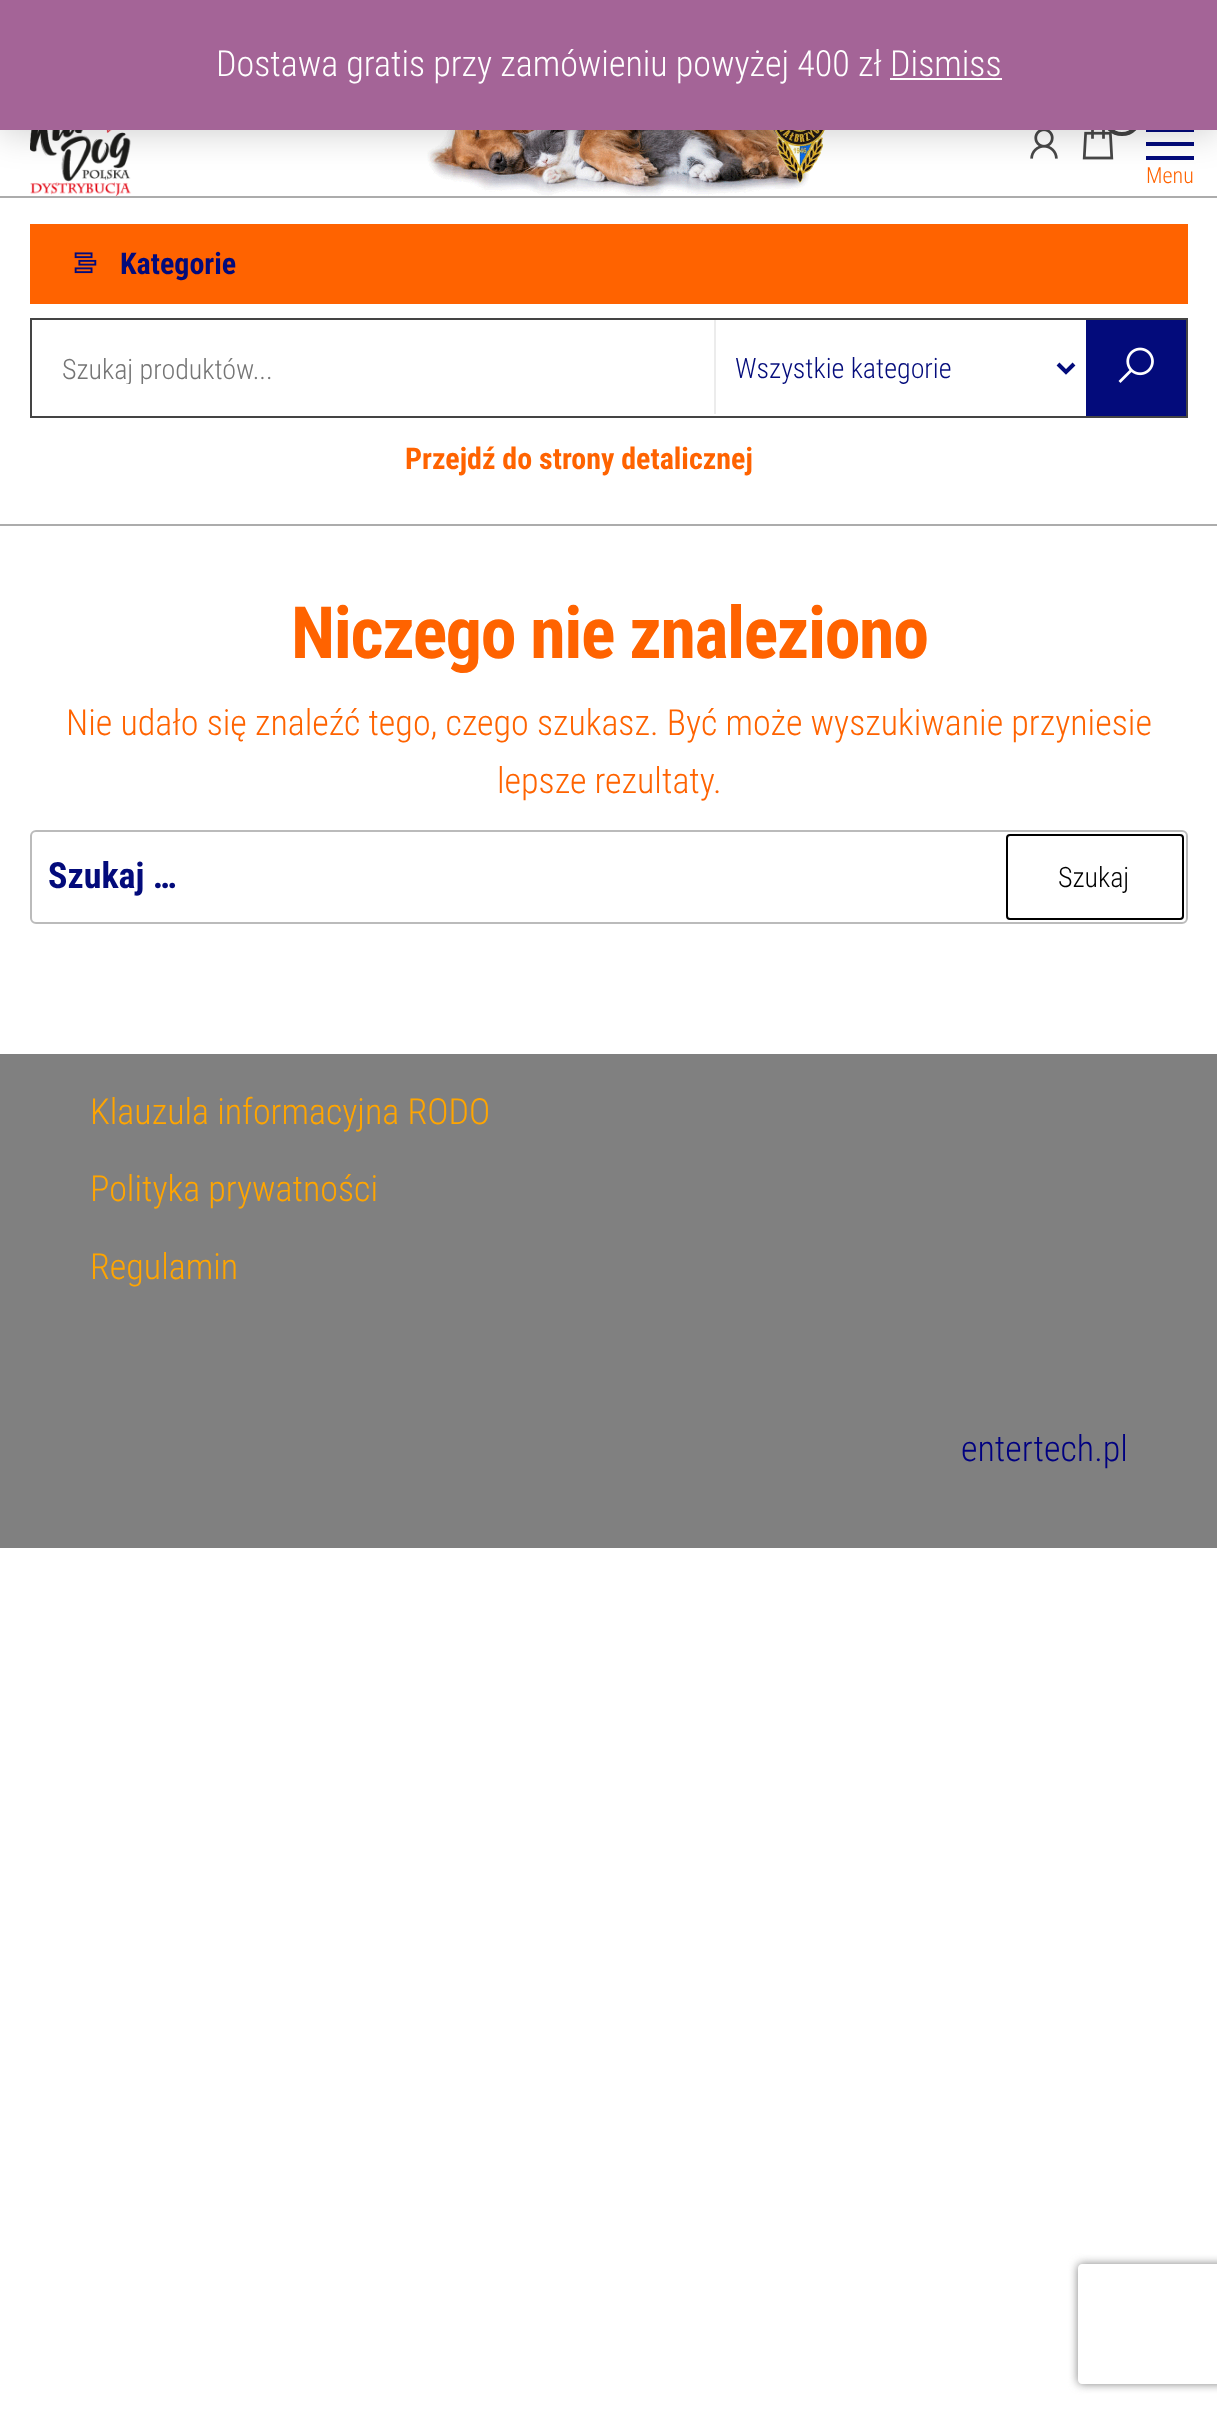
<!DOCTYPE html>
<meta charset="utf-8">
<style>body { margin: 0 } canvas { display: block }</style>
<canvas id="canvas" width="1217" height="2411"></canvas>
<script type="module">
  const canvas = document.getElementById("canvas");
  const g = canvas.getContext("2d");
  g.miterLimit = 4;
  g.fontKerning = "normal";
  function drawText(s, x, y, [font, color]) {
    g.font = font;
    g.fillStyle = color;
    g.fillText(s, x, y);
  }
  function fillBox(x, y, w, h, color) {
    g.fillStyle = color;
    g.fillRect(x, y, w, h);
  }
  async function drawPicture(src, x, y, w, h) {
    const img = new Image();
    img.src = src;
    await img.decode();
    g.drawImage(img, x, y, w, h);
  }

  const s1 = ["300 36px Roboto Condensed", "#FFFFFF"];
  const s2 = ["300 22px Roboto Condensed", "#FF6300"];
  const s3 = ["bold 30px Roboto Condensed", "#030B7B"];
  const s4 = ["300 28px Roboto Condensed", "#757575"];
  const s5 = ["300 28px Roboto Condensed", "#030B7B"];
  const s6 = ["bold 30px Roboto Condensed", "#FF6300"];
  const s7 = ["bold 72px Roboto Condensed", "#FF6300"];
  const s8 = ["300 36px Roboto Condensed", "#FF6300"];
  const s9 = ["bold 36px Roboto Condensed", "#030B7B"];
  const s10 = ["300 28px Roboto Condensed", "#000000"];
  const s11 = ["300 36px Roboto Condensed", "#FFA500"];
  const s12 = ["300 36px Roboto Condensed", "#000080"];

  fillBox(0, 0, 1217, 2411, "#FFFFFF");
  await drawPicture("pic1.png", 427, 130, 414, 66);
  await drawPicture("pic2.png", 30, 130, 102, 66);
  await drawPicture("pic3.png", 1030, 130, 28, 29);
  await drawPicture("pic4.png", 1082, 130, 32, 30);
  g.beginPath();
  g.arc(1122, 116, 18, 0, Math.PI * 2);
  g.fill();
  g.strokeStyle = "#444444";
  g.lineWidth = 4;
  g.stroke();
  fillBox(1146, 130, 48, 2, "#030B7B");
  fillBox(1146, 142, 48, 4, "#030B7B");
  fillBox(1146, 156, 48, 4, "#030B7B");
  g.fillStyle = "rgba(0, 0, 0, 0.2)";
  g.filter = "blur(18px)";
  g.beginPath();
  g.rect(0, 2, 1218, 130);
  g.fill();
  g.filter = "none";
  fillBox(0, 0, 1217, 130, "#A46497");
  drawText("Dostawa gratis przy zamówieniu powyżej 400 zł Dismiss", 216, 76, s1);
  fillBox(890, 78, 112, 2, "#FFFFFF");
  fillBox(0, 196, 1217, 2, "#ACACAC");
  drawText("Menu", 1146, 183, s2);
  fillBox(0, 524, 1217, 2, "#ACACAC");
  fillBox(30, 224, 1158, 80, "#FF6300");
  await drawPicture("pic5.png", 74, 252, 23, 22);
  drawText("Kategorie", 120, 274, s3);
  g.lineWidth = 2;
  g.strokeRect(31, 319, 1156, 98);
  g.save();
  g.beginPath();
  g.rect(62, 352, 636, 32);
  g.clip();
  drawText("Szukaj produktów...", 62, 379, s4);
  g.restore();
  fillBox(714, 320, 2, 94, "#ECECEC");
  g.beginPath();
  g.moveTo(1058, 364);
  g.lineTo(1066, 372);
  g.lineTo(1074, 364);
  g.strokeStyle = "#030B7B";
  g.lineWidth = 4;
  g.stroke();
  drawText("Wszystkie kategorie", 735, 378, s5);
  fillBox(1086, 320, 100, 96, "#030B7B");
  await drawPicture("pic6.png", 1118, 347, 36, 36);
  drawText("Przejdź do strony detalicznej", 405, 469, s6);
  g.letterSpacing = "-1.4px";
  drawText("Niczego nie znaleziono", 291, 658, s7);
  g.letterSpacing = "0px";
  drawText("Nie udało się znaleźć tego, czego szukasz. Być może wyszukiwanie przyniesie", 66, 735, s8);
  drawText("lepsze rezultaty.", 497, 793, s8);
  g.beginPath();
  g.roundRect(31, 831, 1156, 92, 5);
  g.strokeStyle = "#BBBBBB";
  g.lineWidth = 2;
  g.stroke();
  drawText("Szukaj …", 48, 888, s9);
  g.beginPath();
  g.roundRect(1007, 835, 176, 84, 3);
  g.strokeStyle = "#000000";
  g.stroke();
  drawText("Szukaj", 1058, 887, s10);
  fillBox(0, 1054, 1217, 494, "#808080");
  drawText("Klauzula informacyjna RODO", 90, 1124, s11);
  drawText("Polityka prywatności", 90, 1201, s11);
  drawText("Regulamin", 90, 1279, s11);
  drawText("entertech.pl", 961, 1461, s12);
  g.save();
  g.beginPath();
  g.moveTo(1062, 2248);
  g.lineTo(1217, 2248);
  g.lineTo(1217, 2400);
  g.lineTo(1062, 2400);
  g.closePath();
  g.moveTo(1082, 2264);
  g.lineTo(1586, 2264);
  g.bezierCurveTo(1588, 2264, 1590, 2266, 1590, 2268);
  g.lineTo(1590, 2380);
  g.bezierCurveTo(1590, 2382, 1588, 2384, 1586, 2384);
  g.lineTo(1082, 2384);
  g.bezierCurveTo(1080, 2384, 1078, 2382, 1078, 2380);
  g.lineTo(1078, 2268);
  g.bezierCurveTo(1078, 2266, 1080, 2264, 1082, 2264);
  g.closePath();
  g.clip("evenodd");
  g.fillStyle = "#808080";
  g.filter = "blur(5px)";
  g.beginPath();
  g.roundRect(1078, 2264, 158, 120, 4);
  g.fill();
  g.filter = "none";
  g.restore();
</script>
